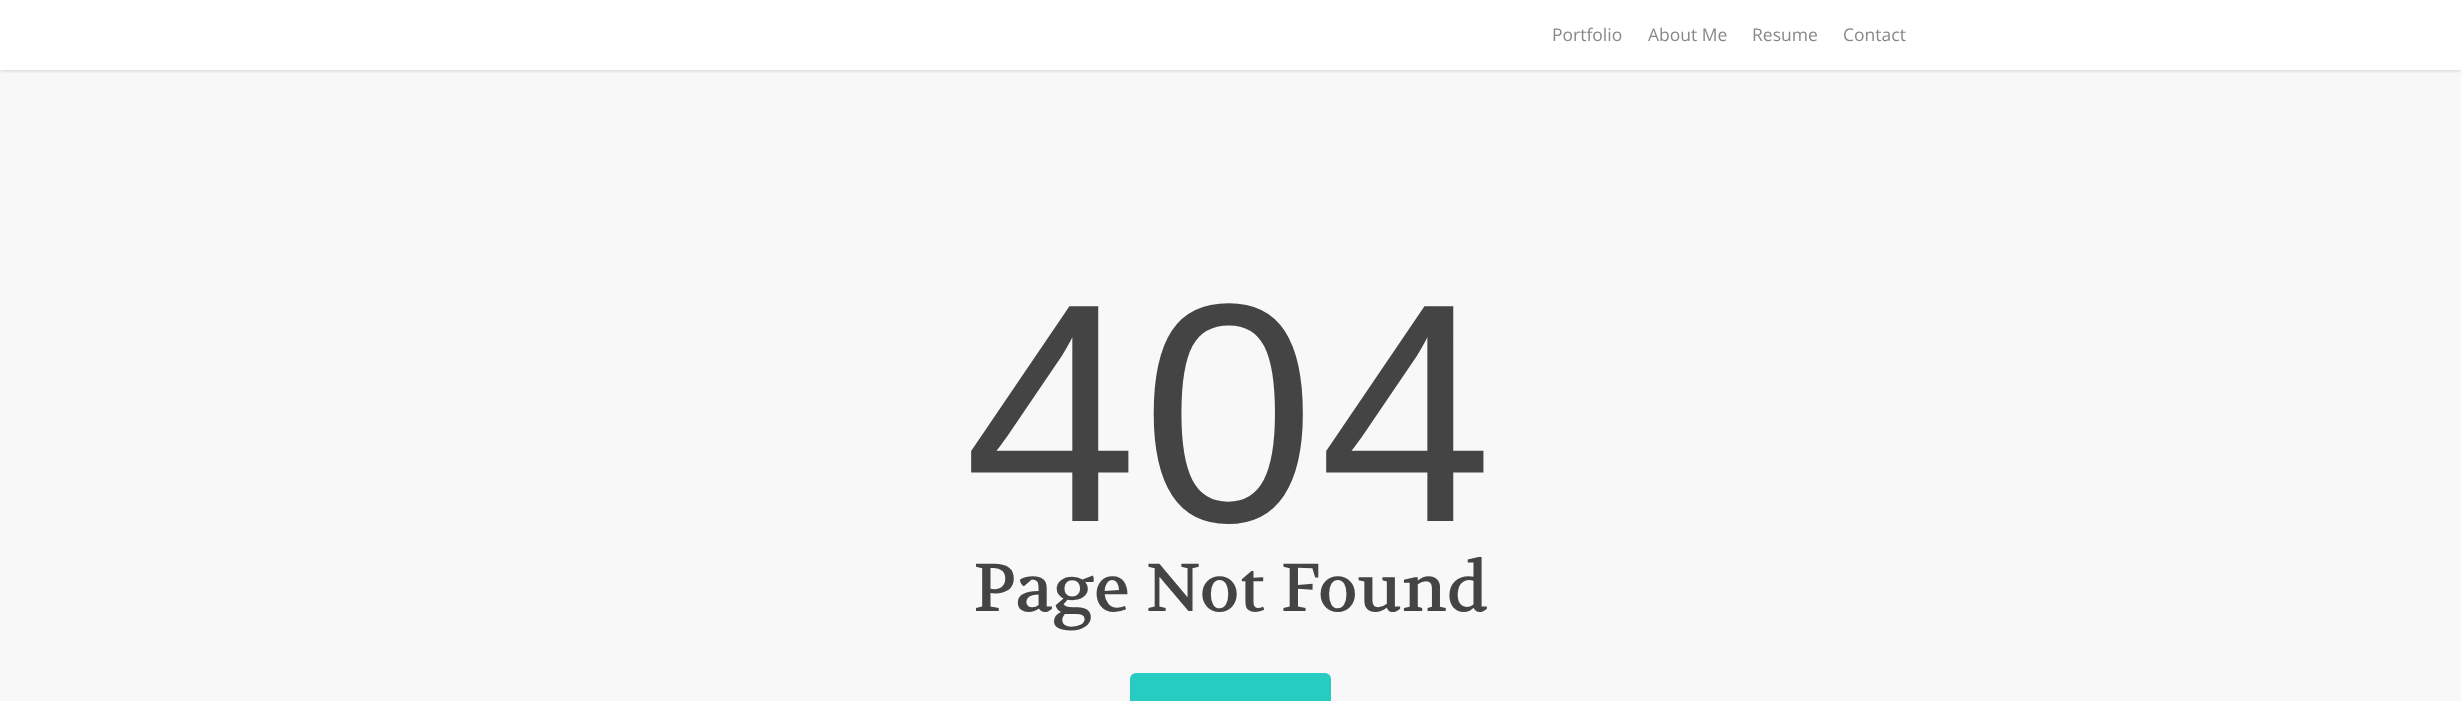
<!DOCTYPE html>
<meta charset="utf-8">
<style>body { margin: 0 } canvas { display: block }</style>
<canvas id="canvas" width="2461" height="701"></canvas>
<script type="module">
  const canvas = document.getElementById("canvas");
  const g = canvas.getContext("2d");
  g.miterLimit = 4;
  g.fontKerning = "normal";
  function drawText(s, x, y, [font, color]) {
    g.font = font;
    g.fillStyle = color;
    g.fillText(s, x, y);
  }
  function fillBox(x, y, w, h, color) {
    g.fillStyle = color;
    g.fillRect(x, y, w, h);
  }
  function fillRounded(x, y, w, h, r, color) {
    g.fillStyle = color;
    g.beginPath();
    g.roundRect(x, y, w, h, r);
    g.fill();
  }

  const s1 = ["17.5px Open Sans", "#888888"];
  const s2 = ["312px Liberation Sans", "#444444"];
  const s3 = ["67.5px Volkhov", "#444444"];

  fillBox(0, 0, 2461, 701, "#FFFFFF");
  fillBox(0, 70, 2461, 631, "#F8F8F8");
  g.save();
  g.beginPath();
  g.rect(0, 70, 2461, 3);
  g.clip();
  g.fillStyle = "rgba(0, 0, 0, 0.22)";
  g.filter = "blur(2px)";
  g.beginPath();
  g.rect(0, 0, 2461, 70);
  g.fill();
  g.filter = "none";
  g.restore();
  drawText("Portfolio", 1552, 41, s1);
  drawText("About Me", 1648, 41, s1);
  drawText("Resume", 1752, 41, s1);
  drawText("Contact", 1843, 41, s1);
  g.letterSpacing = "4px";
  drawText("404", 964, 521, s2);
  g.letterSpacing = "0px";
  drawText("Page Not Found", 973, 611, s3);
  fillRounded(1130, 673, 201, 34, 6, "#27CCC0");
</script>
